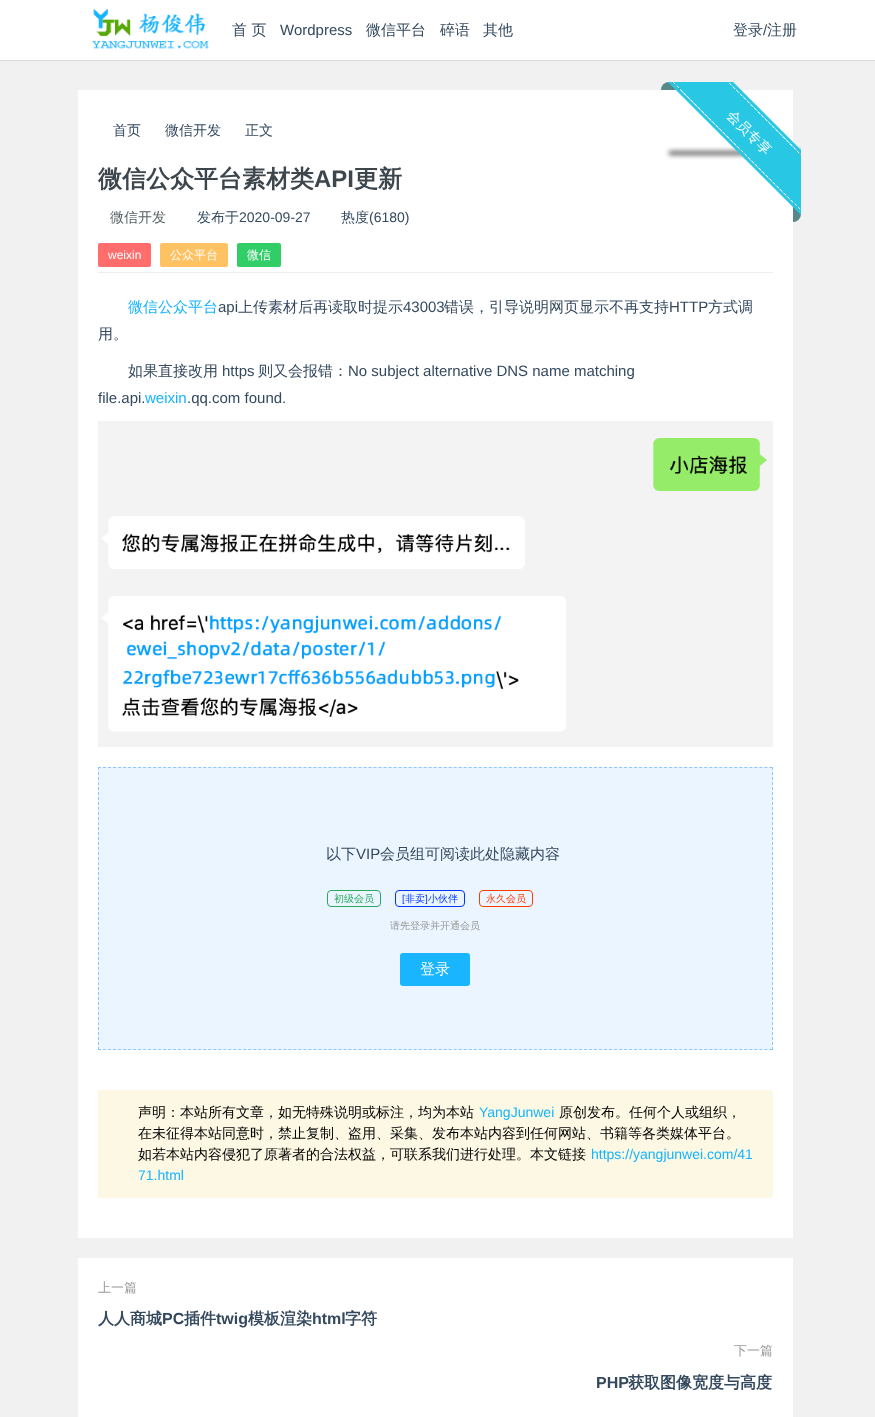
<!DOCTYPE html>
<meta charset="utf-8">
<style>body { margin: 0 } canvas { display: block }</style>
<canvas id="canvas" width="875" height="1417"></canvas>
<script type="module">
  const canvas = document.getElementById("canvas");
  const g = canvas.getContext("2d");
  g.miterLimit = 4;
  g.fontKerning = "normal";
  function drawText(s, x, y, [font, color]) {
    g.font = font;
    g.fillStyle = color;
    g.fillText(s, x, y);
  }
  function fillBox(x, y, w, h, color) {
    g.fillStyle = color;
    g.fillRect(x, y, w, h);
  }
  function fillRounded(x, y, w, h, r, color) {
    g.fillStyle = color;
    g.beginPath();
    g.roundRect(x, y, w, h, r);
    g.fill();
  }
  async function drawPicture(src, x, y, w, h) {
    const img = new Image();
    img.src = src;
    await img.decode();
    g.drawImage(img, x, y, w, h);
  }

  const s1 = ["500 15px WenQuanYi Zen Hei", "#34495E"];
  const s2 = ["15px Liberation Sans", "#34495E"];
  const s3 = ["500 14px WenQuanYi Zen Hei", "#34495E"];
  const s4 = ["bold 24px WenQuanYi Zen Hei", "#3D464D"];
  const s5 = ["bold 24px Liberation Sans", "#3D464D"];
  const s6 = ["500 14px WenQuanYi Zen Hei", "#576366"];
  const s7 = ["14px Liberation Sans", "#34495E"];
  const s8 = ["12px Liberation Sans", "#FFFFFF"];
  const s9 = ["500 12px WenQuanYi Zen Hei", "#FFFFFF"];
  const s10 = ["500 15px WenQuanYi Zen Hei", "#14B4FF"];
  const s11 = ["15px Liberation Sans", "#14B4FF"];
  const s12 = ["500 10px WenQuanYi Zen Hei", "#29AA60"];
  const s13 = ["10px Liberation Sans", "#0035FF"];
  const s14 = ["500 10px WenQuanYi Zen Hei", "#0035FF"];
  const s15 = ["500 10px WenQuanYi Zen Hei", "#FD3D00"];
  const s16 = ["500 10px WenQuanYi Zen Hei", "#999999"];
  const s17 = ["500 15px WenQuanYi Zen Hei", "#FFFFFF"];
  const s18 = ["500 14px WenQuanYi Zen Hei", "#000000"];
  const s19 = ["14px Liberation Sans", "#14B4FF"];
  const s20 = ["500 13px WenQuanYi Zen Hei", "#999999"];
  const s21 = ["bold 16px WenQuanYi Zen Hei", "#34495E"];
  const s22 = ["bold 16px Liberation Sans", "#34495E"];

  fillBox(0, 0, 875, 1417, "#F1F1F1");
  g.fillStyle = "rgba(0, 0, 0, 0.1)";
  g.filter = "blur(0.5px)";
  g.beginPath();
  g.rect(0, 1, 875, 60);
  g.fill();
  g.filter = "none";
  fillBox(0, 0, 875, 60, "#FFFFFF");
  await drawPicture("pic1.png", 92, 8, 117, 41);
  drawText("首 页", 232, 35, s1);
  drawText("Wordpress", 280, 35, s2);
  drawText("微信平台", 366, 35, s1);
  drawText("碎语", 440, 35, s1);
  drawText("其他", 483, 35, s1);
  drawText("登录", 733, 35, s1);
  drawText("/", 763, 35, s2);
  drawText("注册", 767, 35, s1);
  g.fillStyle = "#578787";
  g.beginPath();
  g.roundRect(661, 82, 40, 8, [8, 8, 0, 0]);
  g.fill();
  fillBox(78, 90, 715, 1148, "#FFFFFF");
  g.save();
  g.beginPath();
  g.rect(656, 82, 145, 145);
  g.clip();
  g.fillStyle = "rgba(0, 0, 0, 0.63)";
  g.filter = "blur(2.5px)";
  g.beginPath();
  g.rect(669, 151, 164, 4);
  g.fill();
  g.filter = "none";
  g.restore();
  g.fillStyle = "#578787";
  g.beginPath();
  g.roundRect(793, 182, 8, 40, [0, 8, 8, 0]);
  g.fill();
  g.save();
  g.beginPath();
  g.rect(656, 82, 145, 145);
  g.clip();
  g.beginPath();
  g.moveTo(694, 45);
  g.lineTo(837.5, 188.5);
  g.lineTo(807, 219);
  g.lineTo(663.5, 75.5);
  g.closePath();
  g.strokeStyle = "#28C7E4";
  g.lineWidth = 3;
  g.stroke();
  g.fillStyle = "#28C7E4";
  g.beginPath();
  g.moveTo(694, 47);
  g.lineTo(835, 189);
  g.lineTo(807, 217);
  g.lineTo(666, 75);
  g.closePath();
  g.fill();
  g.beginPath();
  g.moveTo(693.5, 47.5);
  g.lineTo(835, 189);
  g.strokeStyle = "#FFFFFF";
  g.lineWidth = 1;
  g.setLineDash([3, 2.05]);
  g.stroke();
  g.beginPath();
  g.moveTo(666, 75);
  g.lineTo(807.5, 216.5);
  g.stroke();
  g.restore();
  g.font = "500 14px WenQuanYi Zen Hei";
  g.fillStyle = "#FFFFFF";
  g.save();
  g.translate(726, 116);
  g.rotate(45 * Math.PI / 180);
  g.fillText("会员专享", 0, 0);
  g.restore();
  drawText("首页", 113, 135, s3);
  drawText("微信开发", 165, 135, s3);
  drawText("正文", 245, 135, s3);
  fillBox(98, 272, 675, 1, "#EEEEEE");
  drawText("微信公众平台素材类", 98, 187, s4);
  drawText("API", 314, 187, s5);
  drawText("更新", 354, 187, s4);
  drawText("微信开发", 110, 222, s6);
  drawText("发布于", 197, 222, s3);
  drawText("2020-09-27", 239, 222, s7);
  drawText("热度", 341, 222, s3);
  drawText("(6180)", 369, 222, s7);
  fillRounded(98, 243, 53, 24, 2, "#FF6E6C");
  drawText("weixin", 108, 259, s8);
  fillRounded(160, 243, 68, 24, 2, "#FFC262");
  drawText("公众平台", 170, 259, s9);
  fillRounded(237, 243, 44, 24, 2, "#31CD67");
  drawText("微信", 247, 259, s9);
  drawText("微信公众平台", 128, 312, s10);
  drawText("api", 218, 312, s2);
  drawText("上传素材后再读取时提示", 238, 312, s1);
  drawText("43003", 403, 312, s2);
  drawText("错误，引导说明网页显示不再支持", 444, 312, s1);
  drawText("HTTP", 669, 312, s2);
  drawText("方式调", 708, 312, s1);
  drawText("用。", 98, 339, s1);
  drawText("如果直接改用", 128, 376, s1);
  drawText("https", 222, 376, s2);
  drawText("则又会报错：", 258, 376, s1);
  drawText("No subject alternative DNS name matching", 348, 376, s2);
  drawText("file.api.", 98, 403, s2);
  drawText("weixin", 145, 403, s11);
  drawText(".qq.com found.", 187, 403, s2);
  await drawPicture("pic2.png", 98, 421, 675, 326);
  fillBox(98, 767, 675, 283, "#EBF5FF");
  g.beginPath();
  g.moveTo(98, 767.5);
  g.lineTo(773, 767.5);
  g.strokeStyle = "#8CC8FF";
  g.setLineDash([3, 2.01]);
  g.stroke();
  g.beginPath();
  g.moveTo(772.5, 767);
  g.lineTo(772.5, 1050);
  g.setLineDash([3, 2]);
  g.stroke();
  g.beginPath();
  g.moveTo(98, 1049.5);
  g.lineTo(773, 1049.5);
  g.setLineDash([3, 2.01]);
  g.stroke();
  g.beginPath();
  g.moveTo(98.5, 767);
  g.lineTo(98.5, 1050);
  g.setLineDash([3, 2]);
  g.stroke();
  drawText("以下", 326, 859, s1);
  drawText("VIP", 356, 859, s2);
  drawText("会员组可阅读此处隐藏内容", 380, 859, s1);
  g.beginPath();
  g.roundRect(327.5, 890.5, 53, 16, 3.5);
  g.strokeStyle = "#29AA60";
  g.setLineDash([]);
  g.stroke();
  drawText("初级会员", 334, 902, s12);
  g.beginPath();
  g.roundRect(395.5, 890.5, 69, 16, 3.5);
  g.strokeStyle = "#0035FF";
  g.stroke();
  drawText("[", 402, 902, s13);
  drawText("非卖", 405, 902, s14);
  drawText("]", 425, 902, s13);
  drawText("小伙伴", 428, 902, s14);
  g.beginPath();
  g.roundRect(479.5, 890.5, 53, 16, 3.5);
  g.strokeStyle = "#FD3D00";
  g.stroke();
  drawText("永久会员", 486, 902, s15);
  drawText("请先登录并开通会员", 390, 929, s16);
  fillRounded(400, 953, 70, 33, 3, "#19B5FE");
  drawText("登录", 420, 974, s17);
  fillRounded(98, 1090, 675, 108, 3, "#FCF8E3");
  drawText("声明：本站所有文章，如无特殊说明或标注，均为本站", 138, 1117, s18);
  drawText("YangJunwei", 479, 1117, s19);
  drawText("原创发布。任何个人或组织，", 559, 1117, s18);
  drawText("在未征得本站同意时，禁止复制、盗用、采集、发布本站内容到任何网站、书籍等各类媒体平台。", 138, 1138, s18);
  drawText("如若本站内容侵犯了原著者的合法权益，可联系我们进行处理。本文链接", 138, 1159, s18);
  drawText("https://yangjunwei.com/41", 591, 1159, s19);
  drawText("71.html", 138, 1180, s19);
  fillBox(78, 1258, 715, 159, "#FFFFFF");
  drawText("上一篇", 98, 1292, s20);
  drawText("人人商城", 98, 1324, s21);
  drawText("PC", 162, 1324, s22);
  drawText("插件", 184, 1324, s21);
  drawText("twig", 216, 1324, s22);
  drawText("模板渲染", 248, 1324, s21);
  drawText("html", 312, 1324, s22);
  drawText("字符", 345, 1324, s21);
  drawText("下一篇", 734, 1355, s20);
  drawText("PHP", 596, 1388, s22);
  drawText("获取图像宽度与高度", 628, 1388, s21);
</script>
